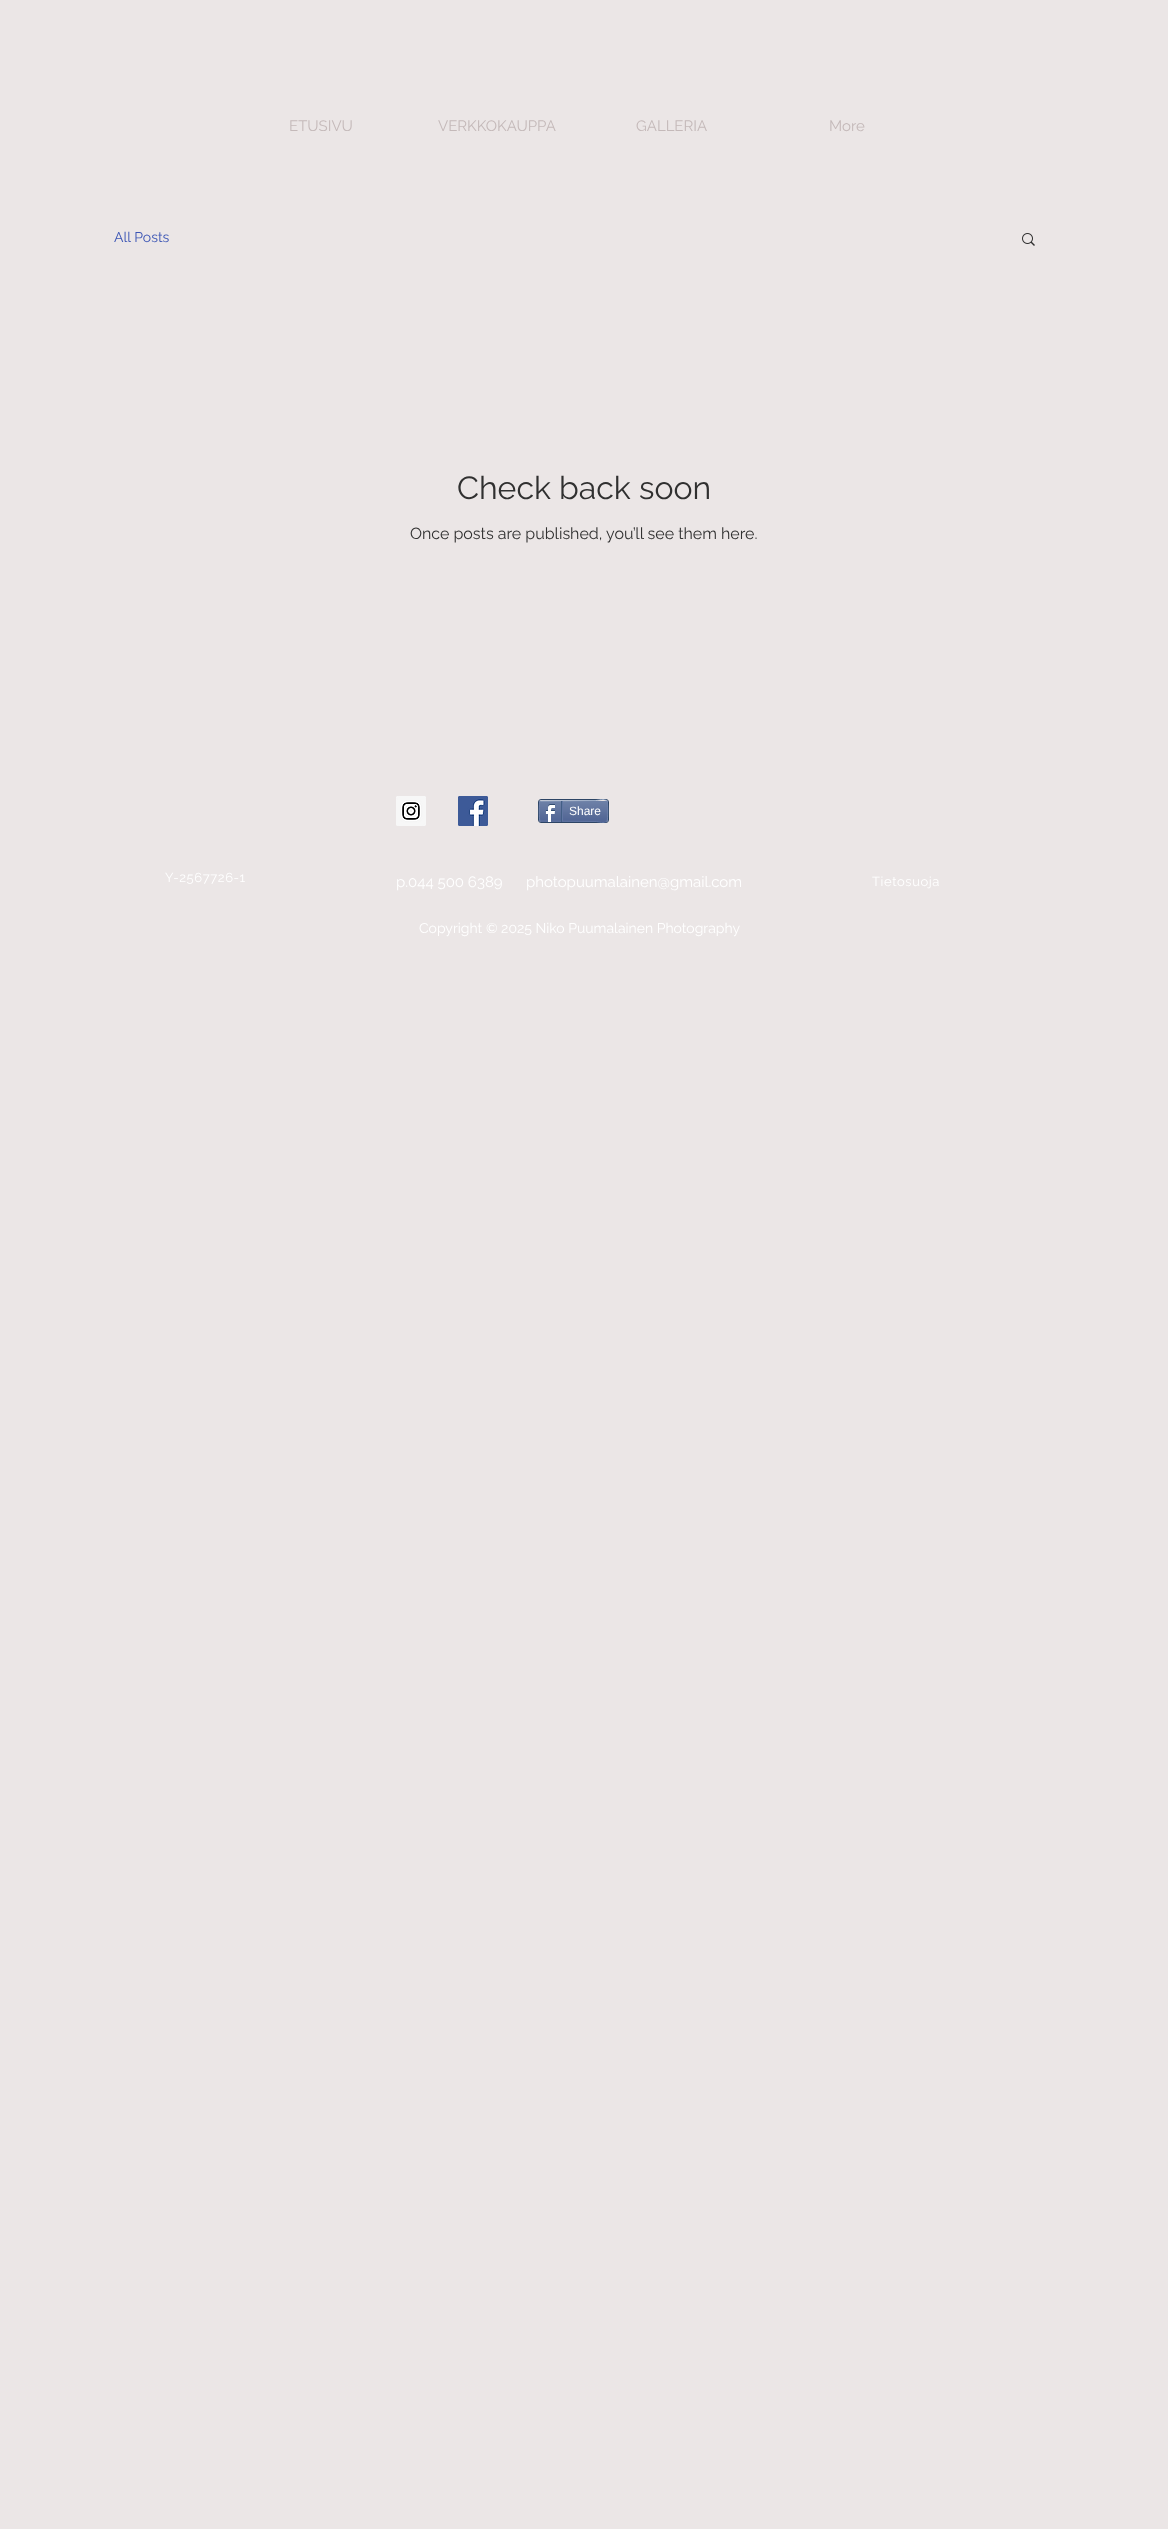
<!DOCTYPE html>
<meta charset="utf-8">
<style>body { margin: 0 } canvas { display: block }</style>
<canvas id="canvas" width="1168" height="2529"></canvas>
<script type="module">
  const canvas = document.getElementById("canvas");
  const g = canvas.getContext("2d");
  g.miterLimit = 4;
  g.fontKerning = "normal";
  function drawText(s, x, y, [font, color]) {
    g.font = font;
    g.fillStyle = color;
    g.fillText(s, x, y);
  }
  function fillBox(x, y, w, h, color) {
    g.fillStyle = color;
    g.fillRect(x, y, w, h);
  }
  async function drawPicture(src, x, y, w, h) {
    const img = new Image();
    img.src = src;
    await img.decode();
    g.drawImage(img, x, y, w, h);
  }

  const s1 = ["15px Raleway", "#C4B9B9"];
  const s2 = ["14px Raleway", "#3A54B4"];
  const s3 = ["32px Raleway", "#303030"];
  const s4 = ["16px Raleway", "#303030"];
  const s5 = ["12px Liberation Sans", "#FFFFFF"];
  const s6 = ["13px Raleway", "#FFFFFF"];
  const s7 = ["15px Raleway", "#FFFFFF"];
  const s8 = ["14px Raleway", "#FFFFFF"];

  fillBox(0, 0, 1168, 2529, "#EBE6E6");
  drawText("ETUSIVU", 289, 131, s1);
  drawText("VERKKOKAUPPA", 438, 131, s1);
  drawText("GALLERIA", 636, 131, s1);
  drawText("More", 829, 131, s1);
  drawText("All Posts", 114, 242, s2);
  await drawPicture("pic1.png", 1022, 233, 13, 13);
  drawText("Check back soon", 457, 499, s3);
  drawText("Once posts are published, you’ll see them here.", 410, 539, s4);
  await drawPicture("pic2.png", 396, 796, 30, 30);
  await drawPicture("pic3.png", 458, 796, 30, 30);
  g.beginPath();
  g.roundRect(538.5, 799.5, 70, 23, 2.5);
  g.strokeStyle = "#2D4565";
  g.stroke();
  await drawPicture("pic4.png", 539, 801, 69, 21);
  g.beginPath();
  g.moveTo(540, 801);
  g.lineTo(595, 800.5);
  g.bezierCurveTo(599, 800.5, 604, 798, 607, 801);
  g.strokeStyle = "#9AABC6";
  g.stroke();
  g.beginPath();
  g.moveTo(607, 801);
  g.bezierCurveTo(608, 801.5, 608, 820.5, 607, 821);
  g.strokeStyle = "#6F83AD";
  g.stroke();
  g.beginPath();
  g.moveTo(607, 821);
  g.bezierCurveTo(604, 824, 599, 821.5, 595, 821.5);
  g.lineTo(540, 821);
  g.strokeStyle = "#6176A3";
  g.stroke();
  g.beginPath();
  g.moveTo(540, 821);
  g.bezierCurveTo(539, 820.5, 539, 801.5, 540, 801);
  g.strokeStyle = "#6F83AD";
  g.stroke();
  await drawPicture("pic5.png", 545, 804, 10, 18);
  fillBox(561, 801, 1, 21, "#425E85");
  drawText("Share", 569, 815, s5);
  fillBox(562, 801, 1, 20, "#6176A3");
  g.letterSpacing = "0.6px";
  drawText("Y-2567726-1", 165, 882, s6);
  g.letterSpacing = "0px";
  drawText("p.044 500 6389", 396, 887, s7);
  drawText("photopuumalainen@gmail.com", 526, 887, s7);
  g.letterSpacing = "0.6px";
  drawText("Tietosuoja", 872, 886, s6);
  g.letterSpacing = "0px";
  drawText("Copyright © 2025 Niko Puumalainen Photography", 419, 933, s8);
</script>
